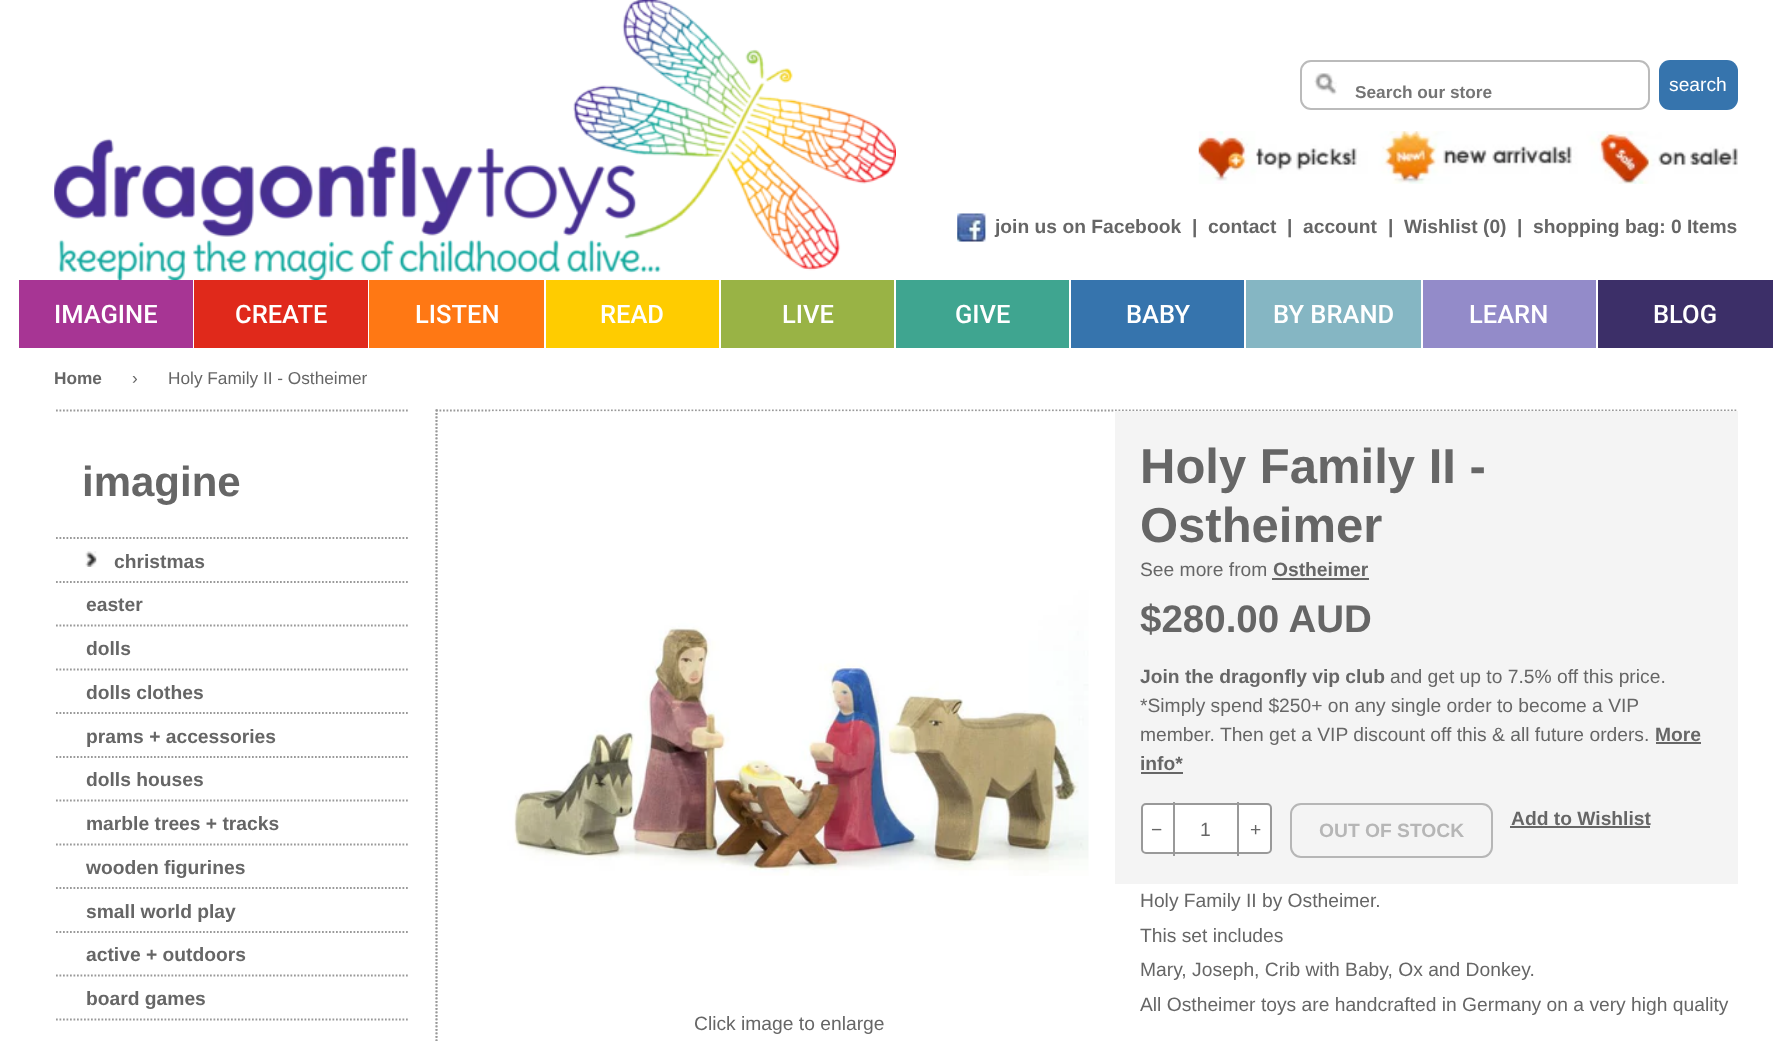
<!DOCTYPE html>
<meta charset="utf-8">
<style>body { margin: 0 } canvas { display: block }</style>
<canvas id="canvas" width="1792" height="1041"></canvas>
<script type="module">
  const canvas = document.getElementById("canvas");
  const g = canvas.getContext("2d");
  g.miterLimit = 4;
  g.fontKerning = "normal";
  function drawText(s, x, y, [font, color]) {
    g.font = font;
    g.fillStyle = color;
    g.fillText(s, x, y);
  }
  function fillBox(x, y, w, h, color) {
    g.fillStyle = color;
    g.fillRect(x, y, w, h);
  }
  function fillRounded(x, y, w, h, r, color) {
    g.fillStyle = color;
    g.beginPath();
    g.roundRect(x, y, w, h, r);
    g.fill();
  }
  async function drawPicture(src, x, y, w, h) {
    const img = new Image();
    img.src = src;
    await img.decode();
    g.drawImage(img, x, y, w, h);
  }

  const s1 = ["bold 17.25px Liberation Sans", "#757575"];
  const s2 = ["19.25px Liberation Sans", "#FFFFFF"];
  const s3 = ["bold 19.25px Liberation Sans", "#666666"];
  const s4 = ["500 25.5px Roboto", "#FFFFFF"];
  const s5 = ["bold 17.25px Liberation Sans", "#666666"];
  const s6 = ["17.25px Liberation Sans", "#666666"];
  const s7 = ["bold 42px Liberation Sans", "#666666"];
  const s8 = ["bold 49px Liberation Sans", "#666666"];
  const s9 = ["19.25px Liberation Sans", "#666666"];
  const s10 = ["bold 38.5px Liberation Sans", "#666666"];
  const s11 = ["bold 19.25px Liberation Sans", "#B6B6B6"];

  fillBox(0, 0, 1792, 1041, "#FFFFFF");
  await drawPicture("pic1.png", 54, 0, 842, 280);
  await drawPicture("pic2.png", 1314, 73, 23, 22);
  g.beginPath();
  g.roundRect(1301, 61, 348, 48, 10);
  g.strokeStyle = "#BBBBBB";
  g.lineWidth = 2;
  g.stroke();
  drawText("Search our store", 1355, 98, s1);
  fillRounded(1659, 60, 79, 50, 11, "#3674AD");
  drawText("search", 1669, 91, s2);
  await drawPicture("pic3.png", 1198, 131, 540, 53);
  await drawPicture("pic4.png", 957, 213, 30, 29);
  drawText("join us on Facebook", 995, 233, s3);
  drawText("|", 1192, 233, s3);
  drawText("contact", 1208, 233, s3);
  drawText("|", 1287, 233, s3);
  drawText("account", 1303, 233, s3);
  drawText("|", 1388, 233, s3);
  drawText("Wishlist (0)", 1404, 233, s3);
  drawText("|", 1517, 233, s3);
  drawText("shopping bag: 0 Items", 1533, 233, s3);
  fillBox(19, 280, 174, 68, "#A73594");
  drawText("IMAGINE", 54, 323, s4);
  fillBox(194, 280, 174, 68, "#E0291B");
  drawText("CREATE", 235, 323, s4);
  fillBox(369, 280, 175, 68, "#FF7814");
  drawText("LISTEN", 415, 323, s4);
  fillBox(546, 280, 173, 68, "#FFCC00");
  drawText("READ", 600, 323, s4);
  fillBox(721, 280, 173, 68, "#99B345");
  drawText("LIVE", 782, 323, s4);
  fillBox(896, 280, 173, 68, "#3FA590");
  drawText("GIVE", 955, 323, s4);
  fillBox(1071, 280, 173, 68, "#3674AD");
  drawText("BABY", 1126, 323, s4);
  fillBox(1246, 280, 175, 68, "#85B6C3");
  drawText("BY BRAND", 1273, 323, s4);
  fillBox(1423, 280, 173, 68, "#938BC9");
  drawText("LEARN", 1469, 323, s4);
  fillBox(1598, 280, 175, 68, "#3C2F68");
  drawText("BLOG", 1653, 323, s4);
  drawText("Home", 54, 384, s5);
  drawText("›", 132, 384, s6);
  drawText("Holy Family II - Ostheimer", 168, 384, s6);
  g.beginPath();
  g.moveTo(436, 410.5);
  g.lineTo(1738, 410.5);
  g.strokeStyle = "#999999";
  g.lineWidth = 1.8;
  g.setLineDash([1.75, 1.75]);
  g.stroke();
  g.beginPath();
  g.moveTo(436.5, 409.5);
  g.lineTo(436.5, 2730);
  g.stroke();
  g.beginPath();
  g.moveTo(436.5, 409.5);
  g.lineTo(436.5, 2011);
  g.stroke();
  g.beginPath();
  g.moveTo(56, 410.5);
  g.lineTo(409.5, 410.5);
  g.stroke();
  drawText("imagine", 82, 496, s7);
  g.beginPath();
  g.moveTo(56, 538);
  g.lineTo(409.5, 538);
  g.stroke();
  await drawPicture("pic5.png", 85, 551, 12, 16);
  drawText("christmas", 114, 568, s3);
  g.beginPath();
  g.moveTo(56, 582);
  g.lineTo(409.5, 582);
  g.stroke();
  drawText("easter", 86, 611, s3);
  g.beginPath();
  g.moveTo(56, 625.5);
  g.lineTo(409.5, 625.5);
  g.stroke();
  drawText("dolls", 86, 655, s3);
  g.beginPath();
  g.moveTo(56, 669.5);
  g.lineTo(409.5, 669.5);
  g.stroke();
  drawText("dolls clothes", 86, 699, s3);
  g.beginPath();
  g.moveTo(56, 713);
  g.lineTo(409.5, 713);
  g.stroke();
  drawText("prams + accessories", 86, 743, s3);
  g.beginPath();
  g.moveTo(56, 757);
  g.lineTo(409.5, 757);
  g.stroke();
  drawText("dolls houses", 86, 786, s3);
  g.beginPath();
  g.moveTo(56, 800.5);
  g.lineTo(409.5, 800.5);
  g.stroke();
  drawText("marble trees + tracks", 86, 830, s3);
  g.beginPath();
  g.moveTo(56, 844.5);
  g.lineTo(409.5, 844.5);
  g.stroke();
  drawText("wooden figurines", 86, 874, s3);
  g.beginPath();
  g.moveTo(56, 888);
  g.lineTo(409.5, 888);
  g.stroke();
  drawText("small world play", 86, 918, s3);
  g.beginPath();
  g.moveTo(56, 932);
  g.lineTo(409.5, 932);
  g.stroke();
  drawText("active + outdoors", 86, 961, s3);
  g.beginPath();
  g.moveTo(56, 975.5);
  g.lineTo(409.5, 975.5);
  g.stroke();
  drawText("board games", 86, 1005, s3);
  g.beginPath();
  g.moveTo(56, 1019.5);
  g.lineTo(409.5, 1019.5);
  g.stroke();
  fillBox(1115, 411, 623, 473, "#F4F4F4");
  drawText("Holy Family II -", 1140, 483, s8);
  drawText("Ostheimer", 1140, 542, s8);
  drawText("See more from", 1140, 576, s9);
  drawText("Ostheimer", 1273, 576, s3);
  fillBox(1272, 578, 97, 2, "#666666");
  drawText("$280.00 AUD", 1140, 632, s10);
  drawText("Join the dragonfly vip club", 1140, 683, s3);
  drawText("and get up to 7.5% off this price.", 1390, 683, s9);
  drawText("*Simply spend $250+ on any single order to become a VIP", 1140, 712, s9);
  drawText("member. Then get a VIP discount off this & all future orders.", 1140, 741, s9);
  drawText("More", 1655, 741, s3);
  fillBox(1656, 742, 45, 2, "#666666");
  drawText("info*", 1140, 770, s3);
  fillBox(1141, 772, 42, 2, "#666666");
  drawText("Add to Wishlist", 1511, 825, s3);
  fillBox(1510, 826, 140, 2, "#666666");
  g.fillStyle = "#FFFFFF";
  g.beginPath();
  g.roundRect(1142, 804, 129, 49, 4);
  g.fill();
  g.lineWidth = 2;
  g.setLineDash([]);
  g.stroke();
  fillBox(1173, 802, 2, 54, "#999999");
  drawText("−", 1151, 836, s9);
  drawText("1", 1200, 836, s9);
  fillBox(1237, 802, 2, 54, "#999999");
  drawText("+", 1250, 836, s9);
  g.beginPath();
  g.roundRect(1291, 804, 201, 53, 10);
  g.strokeStyle = "#B6B6B6";
  g.stroke();
  drawText("OUT OF STOCK", 1319, 837, s11);
  drawText("Holy Family II by Ostheimer.", 1140, 907, s9);
  drawText("This set includes", 1140, 942, s9);
  drawText("Mary, Joseph, Crib with Baby, Ox and Donkey.", 1140, 976, s9);
  drawText("All Ostheimer toys are handcrafted in Germany on a very high quality", 1140, 1011, s9);
  await drawPicture("pic6.png", 490, 411, 599, 465);
  drawText("Click image to enlarge", 694, 1030, s9);
</script>
